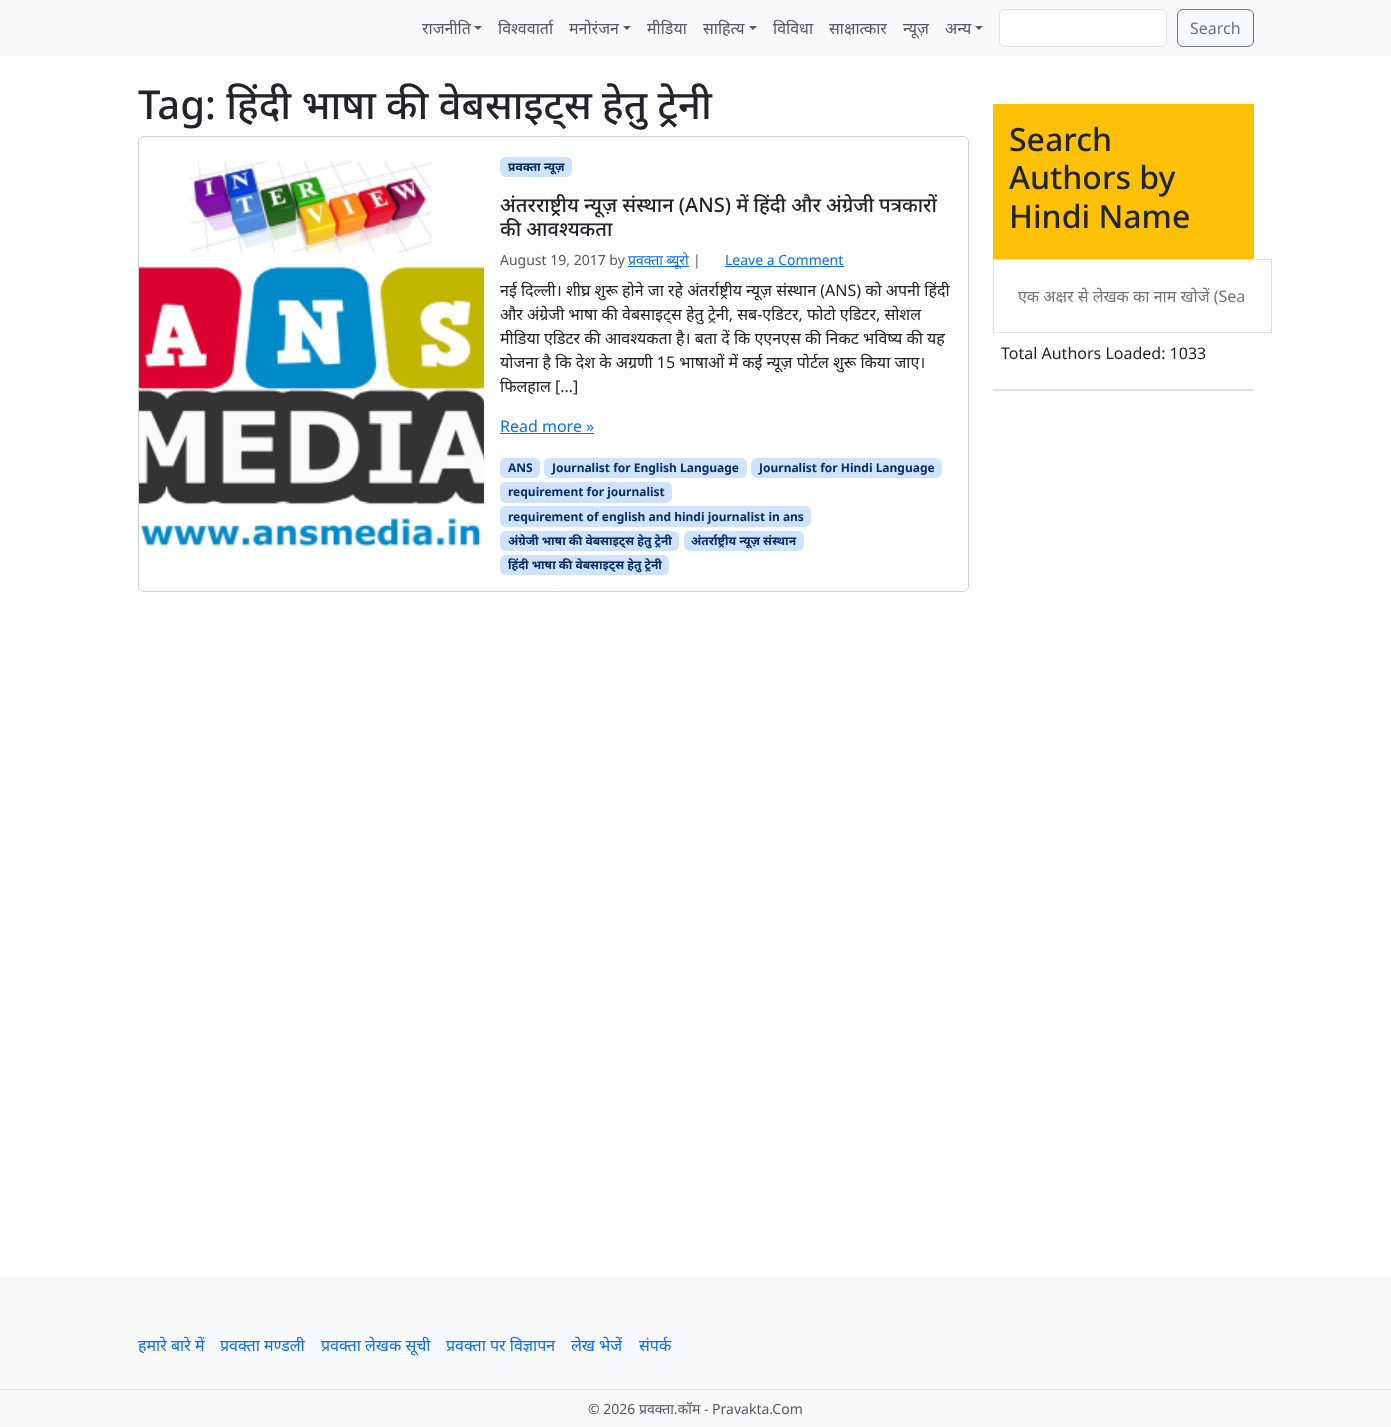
<!DOCTYPE html>
<meta charset="utf-8">
<style>body { margin: 0 } canvas { display: block }</style>
<canvas id="canvas" width="1391" height="1427"></canvas>
<script type="module">
  const canvas = document.getElementById("canvas");
  const g = canvas.getContext("2d");
  g.miterLimit = 4;
  g.fontKerning = "normal";
  function drawText(s, x, y, [font, color]) {
    g.font = font;
    g.fillStyle = color;
    g.fillText(s, x, y);
  }
  function fillBox(x, y, w, h, color) {
    g.fillStyle = color;
    g.fillRect(x, y, w, h);
  }
  function fillRounded(x, y, w, h, r, color) {
    g.fillStyle = color;
    g.beginPath();
    g.roundRect(x, y, w, h, r);
    g.fill();
  }
  async function drawPicture(src, x, y, w, h) {
    const img = new Image();
    img.src = src;
    await img.decode();
    g.drawImage(img, x, y, w, h);
  }

  const s1 = ["16px Noto Sans", "#575A5D"];
  const s2 = ["16px Noto Sans", "#6C757D"];
  const s3 = ["500 40px Noto Sans", "#212529"];
  const s4 = ["bold 12px Noto Sans", "#052C65"];
  const s5 = ["500 20px Noto Sans", "#212529"];
  const s6 = ["14px Noto Sans", "#575A5D"];
  const s7 = ["14px Noto Sans", "#0D6EFD"];
  const s8 = ["16px Noto Sans", "#212529"];
  const s9 = ["16px Noto Sans", "#0D6EFD"];
  const s10 = ["500 32px Noto Sans", "#212529"];
  const s11 = ["16px Noto Sans", "#757575"];

  fillBox(0, 0, 1391, 1427, "#FFFFFF");
  fillBox(0, 0, 1391, 56, "#F8F9FA");
  drawText("राजनीति", 422, 34, s1);
  g.fillStyle = "#575758";
  g.beginPath();
  g.moveTo(474, 26);
  g.lineTo(482, 26);
  g.lineTo(478, 30);
  g.closePath();
  g.fill();
  drawText("विश्ववार्ता", 498, 34, s1);
  drawText("मनोरंजन", 569, 34, s1);
  g.fillStyle = "#575758";
  g.beginPath();
  g.moveTo(623, 26);
  g.lineTo(631, 26);
  g.lineTo(627, 30);
  g.closePath();
  g.fill();
  drawText("मीडिया", 647, 34, s1);
  drawText("साहित्‍य", 703, 34, s1);
  g.fillStyle = "#575758";
  g.beginPath();
  g.moveTo(749, 26);
  g.lineTo(757, 26);
  g.lineTo(753, 30);
  g.closePath();
  g.fill();
  drawText("विविधा", 773, 34, s1);
  drawText("साक्षात्‍कार", 829, 34, s1);
  drawText("न्यूज़", 903, 34, s1);
  drawText("अन्य", 945, 34, s1);
  g.fillStyle = "#575758";
  g.beginPath();
  g.moveTo(975, 26);
  g.lineTo(983, 26);
  g.lineTo(979, 30);
  g.closePath();
  g.fill();
  g.fillStyle = "#FFFFFF";
  g.beginPath();
  g.roundRect(999.5, 9.5, 167, 37, 5.5);
  g.fill();
  g.strokeStyle = "#DEE2E6";
  g.stroke();
  g.beginPath();
  g.roundRect(1177.5, 9.5, 76, 37, 5.5);
  g.strokeStyle = "#6C757D";
  g.stroke();
  drawText("Search", 1190, 34, s2);
  drawText("Tag: हिंदी भाषा की वेबसाइट्स हेतु ट्रेनी", 138, 119, s3);
  g.beginPath();
  g.roundRect(138.5, 136.5, 830, 455, 5.5);
  g.strokeStyle = "#D2D2D2";
  g.stroke();
  await drawPicture("pic1.png", 139, 137, 345, 454);
  fillRounded(500, 157, 72, 20, 6, "#CFE2FF");
  drawText("प्रवक्ता न्यूज़", 508, 171, s4);
  drawText("अंतरराष्ट्रीय न्यूज़ संस्थान (ANS) में हिंदी और अंग्रेजी पत्रकारों", 500, 212, s5);
  drawText("की आवश्यकता", 500, 236, s5);
  drawText("August 19, 2017 by", 500, 265, s6);
  fillBox(628, 266, 61, 1, "#0D6EFD");
  drawText("प्रवक्‍ता ब्यूरो", 628, 265, s7);
  drawText("|", 693, 265, s6);
  drawText("Leave a Comment", 725, 265, s7);
  fillBox(725, 266, 119, 1, "#0D6EFD");
  drawText("नई दिल्ली। शीघ्र शुरू होने जा रहे अंतर्राष्ट्रीय न्यूज़ संस्थान (ANS) को अपनी हिंदी", 500, 296, s8);
  drawText("और अंग्रेजी भाषा की वेबसाइट्स हेतु ट्रेनी, सब-एडिटर, फोटो एडिटर, सोशल", 500, 320, s8);
  drawText("मीडिया एडिटर की आवश्यकता है। बता दें कि एएनएस की निकट भविष्य की यह", 500, 344, s8);
  drawText("योजना है कि देश के अग्रणी 15 भाषाओं में कई न्यूज़ पोर्टल शुरू किया जाए।", 500, 368, s8);
  drawText("फिलहाल […]", 500, 392, s8);
  drawText("Read more »", 500, 432, s9);
  fillBox(500, 433, 94, 1, "#0D6EFD");
  fillRounded(500, 458, 40, 20, 6, "#CFE2FF");
  drawText("ANS", 508, 472, s4);
  fillRounded(544, 458, 203, 20, 6, "#CFE2FF");
  drawText("Journalist for English Language", 552, 472, s4);
  fillRounded(751, 458, 191, 20, 6, "#CFE2FF");
  drawText("Journalist for Hindi Language", 759, 472, s4);
  fillRounded(500, 482, 172, 21, 6, "#CFE2FF");
  drawText("requirement for journalist", 508, 496, s4);
  fillRounded(500, 506, 311, 21, 6, "#CFE2FF");
  drawText("requirement of english and hindi journalist in ans", 508, 521, s4);
  fillRounded(500, 531, 179, 20, 6, "#CFE2FF");
  drawText("अंग्रेजी भाषा की वेबसाइट्स हेतु ट्रेनी", 508, 545, s4);
  fillRounded(684, 531, 120, 20, 6, "#CFE2FF");
  drawText("अंतर्राष्ट्रीय न्यूज़ संस्थान", 691, 545, s4);
  fillRounded(500, 555, 169, 20, 6, "#CFE2FF");
  drawText("हिंदी भाषा की वेबसाइट्स हेतु ट्रेनी", 508, 569, s4);
  fillBox(993, 104, 261, 155, "#FFC107");
  drawText("Search", 1009, 151, s10);
  drawText("Authors by", 1009, 189, s10);
  drawText("Hindi Name", 1009, 228, s10);
  g.strokeStyle = "#DEE2E6";
  g.strokeRect(993.5, 259.5, 278, 73);
  drawText("एक अक्षर से लेखक का नाम खोजें (Sea", 1018, 302, s11);
  drawText("Total Authors Loaded: 1033", 1001, 359, s8);
  fillBox(993, 389, 261, 2, "#DEE2E6");
  fillBox(0, 1277, 1391, 112, "#F8F9FA");
  drawText("हमारे बारे में", 138, 1351, s9);
  drawText("प्रवक्‍ता मण्डली", 220, 1351, s9);
  drawText("प्रवक्ता लेखक सूची", 321, 1351, s9);
  drawText("प्रवक्ता पर विज्ञापन", 446, 1351, s9);
  drawText("लेख भेजें", 571, 1351, s9);
  drawText("संपर्क", 639, 1351, s9);
  fillBox(0, 1390, 1391, 37, "#F8F9FA");
  fillBox(0, 1389, 1391, 1, "#DEE2E6");
  drawText("© 2026 प्रवक्‍ता.कॉम - Pravakta.Com", 588, 1414, s6);
</script>
